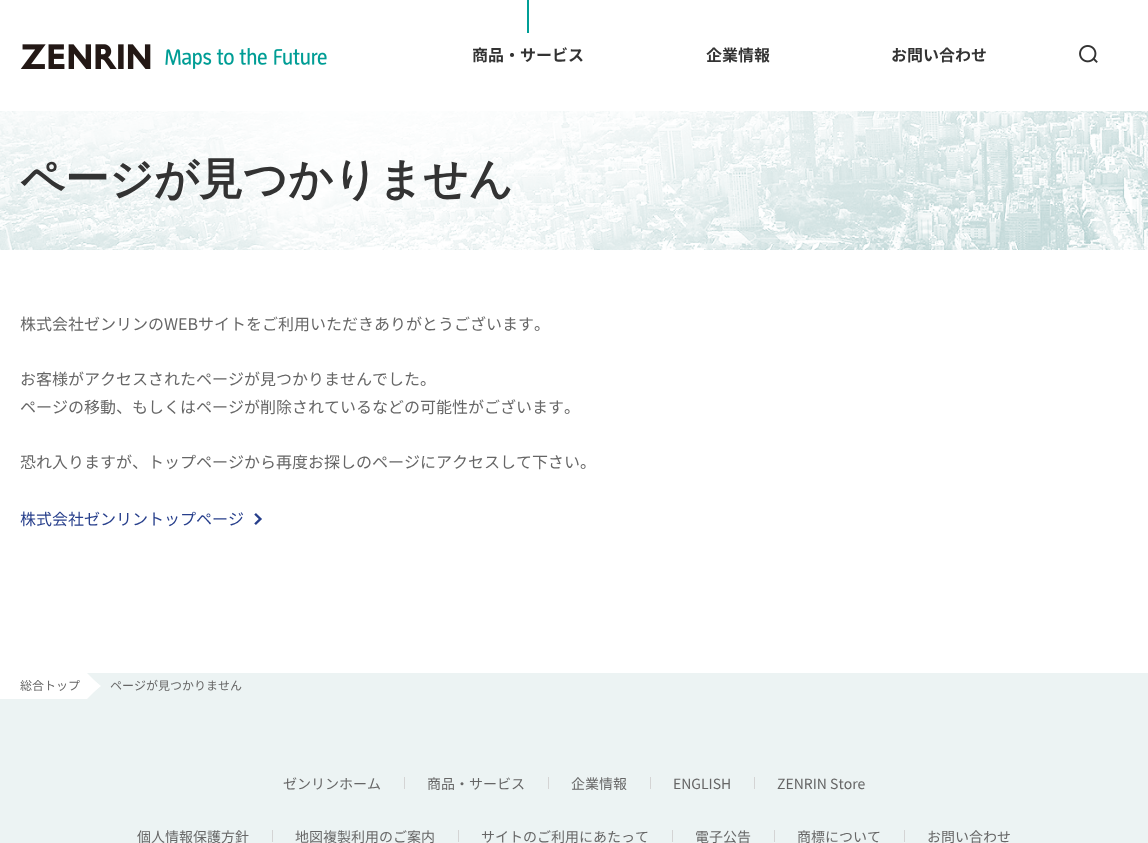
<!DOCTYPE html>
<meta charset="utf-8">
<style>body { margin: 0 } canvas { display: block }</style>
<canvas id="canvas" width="1148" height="843"></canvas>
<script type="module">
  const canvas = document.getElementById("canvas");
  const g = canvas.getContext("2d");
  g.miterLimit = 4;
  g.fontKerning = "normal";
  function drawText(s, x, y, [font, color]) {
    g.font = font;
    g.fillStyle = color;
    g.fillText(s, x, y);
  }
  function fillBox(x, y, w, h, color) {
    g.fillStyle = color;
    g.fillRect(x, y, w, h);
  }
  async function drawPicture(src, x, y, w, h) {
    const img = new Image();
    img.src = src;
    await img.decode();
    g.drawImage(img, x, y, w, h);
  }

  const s1 = ["bold 16px Noto Sans CJK JP", "#333333"];
  const s2 = ["bold 44px WenQuanYi Zen Hei", "#333333"];
  const s3 = ["16px Noto Sans CJK JP", "#666666"];
  const s4 = ["16px Noto Sans CJK JP", "#263E8B"];
  const s5 = ["12px Noto Sans CJK JP", "#666666"];
  const s6 = ["14px Noto Sans CJK JP", "#666666"];

  fillBox(0, 0, 1148, 843, "#FFFFFF");
  await drawPicture("pic1.png", 20, 44, 307, 25);
  fillBox(527, 0, 2, 33, "#009E96");
  drawText("商品・サービス", 472, 61, s1);
  drawText("企業情報", 706, 61, s1);
  drawText("お問い合わせ", 891, 61, s1);
  await drawPicture("pic2.png", 1079, 45, 19, 18);
  await drawPicture("pic3.png", 0, 111, 1148, 139);
  drawText("ページが見つかりません", 20, 194, s2);
  drawText("株式会社ゼンリンのWEBサイトをご利用いただきありがとうございます。", 20, 330, s3);
  drawText("お客様がアクセスされたページが見つかりませんでした。", 20, 385, s3);
  drawText("ページの移動、もしくはページが削除されているなどの可能性がございます。", 20, 413, s3);
  drawText("恐れ入りますが、トップページから再度お探しのページにアクセスして下さい。", 20, 468, s3);
  drawText("株式会社ゼンリントップページ", 20, 525, s4);
  await drawPicture("pic4.png", 254, 513, 8, 12);
  fillBox(87, 673, 1061, 26, "#ECF3F3");
  drawText("総合トップ", 20, 690, s5);
  g.fillStyle = "#FFFFFF";
  g.beginPath();
  g.moveTo(86, 700);
  g.lineTo(86, 672);
  g.lineTo(100, 686);
  g.closePath();
  g.fill();
  g.beginPath();
  g.moveTo(86, 698);
  g.lineTo(86, 674);
  g.lineTo(101, 686);
  g.closePath();
  g.fill();
  drawText("ページが見つかりません", 110, 690, s5);
  fillBox(0, 699, 1148, 144, "#ECF3F3");
  drawText("ゼンリンホーム", 283, 789, s6);
  fillBox(404, 777, 1, 12, "#D4D4D4");
  drawText("商品・サービス", 427, 789, s6);
  fillBox(548, 777, 1, 12, "#D4D4D4");
  drawText("企業情報", 571, 789, s6);
  fillBox(650, 777, 1, 12, "#D4D4D4");
  drawText("ENGLISH", 673, 789, s6);
  fillBox(754, 777, 1, 12, "#D4D4D4");
  drawText("ZENRIN Store", 777, 789, s6);
  drawText("個人情報保護方針", 137, 842, s6);
  fillBox(272, 830, 1, 12, "#D4D4D4");
  drawText("地図複製利用のご案内", 295, 842, s6);
  fillBox(458, 830, 1, 12, "#D4D4D4");
  drawText("サイトのご利用にあたって", 481, 842, s6);
  fillBox(672, 830, 1, 12, "#D4D4D4");
  drawText("電子公告", 695, 842, s6);
  fillBox(774, 830, 1, 12, "#D4D4D4");
  drawText("商標について", 797, 842, s6);
  fillBox(904, 830, 1, 12, "#D4D4D4");
  drawText("お問い合わせ", 927, 842, s6);
</script>
